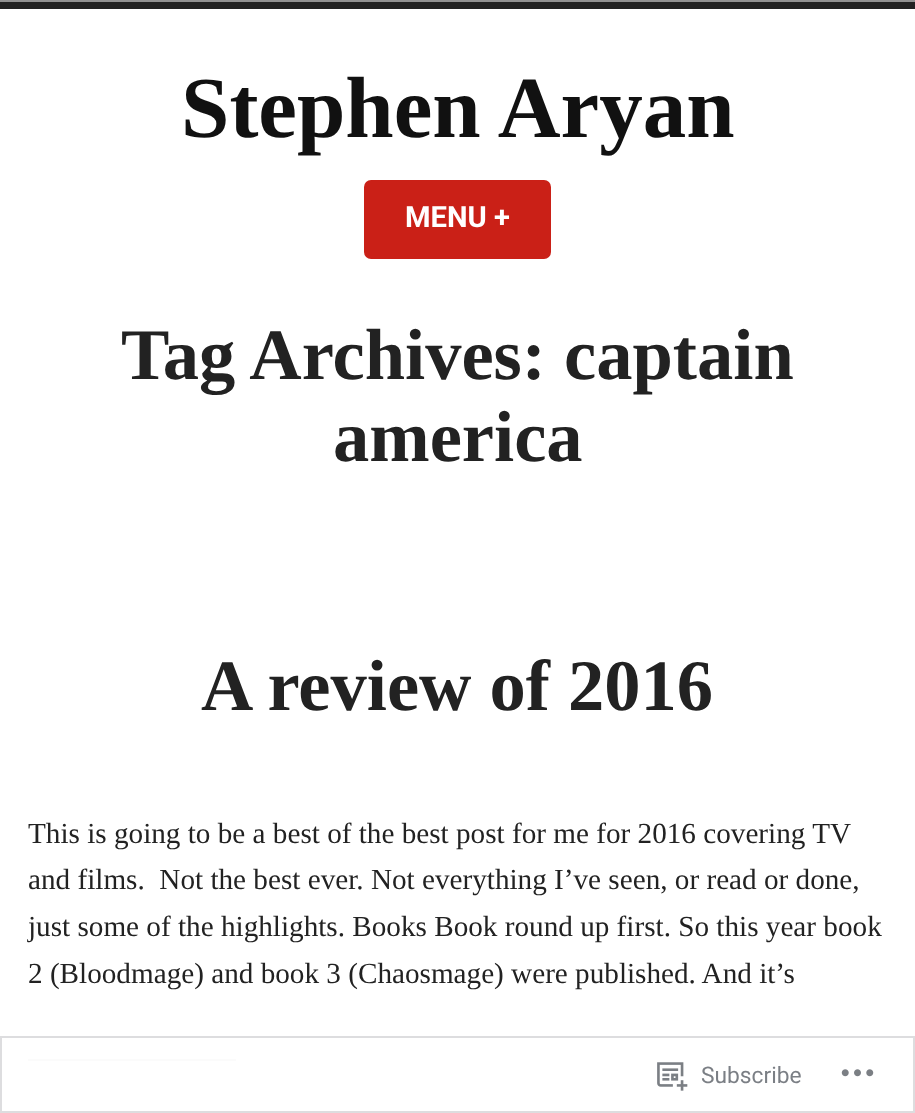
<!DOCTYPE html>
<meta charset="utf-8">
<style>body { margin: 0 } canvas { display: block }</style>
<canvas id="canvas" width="915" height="1113"></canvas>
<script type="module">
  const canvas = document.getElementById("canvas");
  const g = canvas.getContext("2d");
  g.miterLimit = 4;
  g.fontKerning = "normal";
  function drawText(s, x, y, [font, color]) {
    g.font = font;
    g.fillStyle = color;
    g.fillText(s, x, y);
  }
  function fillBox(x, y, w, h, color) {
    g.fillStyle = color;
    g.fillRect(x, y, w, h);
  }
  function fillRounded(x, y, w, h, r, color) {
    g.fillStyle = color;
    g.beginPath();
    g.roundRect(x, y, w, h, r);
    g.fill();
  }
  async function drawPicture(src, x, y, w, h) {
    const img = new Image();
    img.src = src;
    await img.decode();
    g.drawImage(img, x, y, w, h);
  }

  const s1 = ["bold 87px Liberation Serif", "#111111"];
  const s2 = ["bold 29.2px Roboto", "#FFFFFF"];
  const s3 = ["bold 72.5px Liberation Serif", "#222222"];
  const s4 = ["29.2px Liberation Serif", "#222222"];
  const s5 = ["22.75px Roboto", "#7B7F85"];

  fillBox(0, 0, 915, 1113, "#FFFFFF");
  fillBox(0, 2, 915, 7, "#222222");
  fillBox(0, 0, 915, 2, "#919191");
  drawText("Stephen Aryan", 181, 137, s1);
  fillRounded(364, 180, 187, 79, 7, "#CA2017");
  drawText("MENU +", 405, 227, s2);
  drawText("Tag Archives: captain", 121, 379, s3);
  drawText("america", 333, 461, s3);
  drawText("A review of 2016", 201, 710, s3);
  drawText("This is going to be a best of the best post for me for 2016 covering TV", 28, 843, s4);
  drawText("and films.  Not the best ever. Not everything I’ve seen, or read or done,", 28, 889, s4);
  drawText("just some of the highlights. Books Book round up first. So this year book", 28, 936, s4);
  drawText("2 (Bloodmage) and book 3 (Chaosmage) were published. And it’s", 28, 983, s4);
  fillBox(28, 1059, 208, 2, "#FBFBFB");
  g.strokeStyle = "rgba(220, 220, 222, 0.98)";
  g.lineWidth = 2;
  g.strokeRect(1, 1037, 913, 75);
  await drawPicture("pic1.png", 657, 1062, 31, 29);
  drawText("Subscribe", 701, 1083, s5);
  await drawPicture("pic2.png", 841, 1069, 33, 8);
</script>
